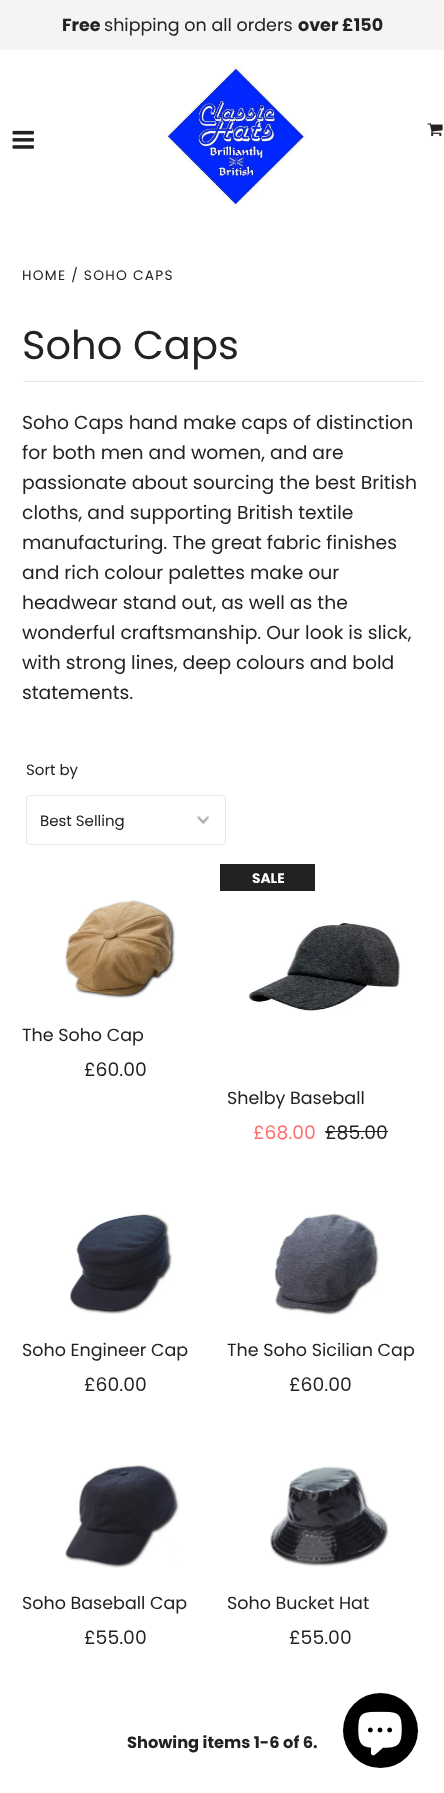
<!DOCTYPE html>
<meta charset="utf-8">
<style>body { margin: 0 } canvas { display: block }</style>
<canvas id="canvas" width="444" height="1793"></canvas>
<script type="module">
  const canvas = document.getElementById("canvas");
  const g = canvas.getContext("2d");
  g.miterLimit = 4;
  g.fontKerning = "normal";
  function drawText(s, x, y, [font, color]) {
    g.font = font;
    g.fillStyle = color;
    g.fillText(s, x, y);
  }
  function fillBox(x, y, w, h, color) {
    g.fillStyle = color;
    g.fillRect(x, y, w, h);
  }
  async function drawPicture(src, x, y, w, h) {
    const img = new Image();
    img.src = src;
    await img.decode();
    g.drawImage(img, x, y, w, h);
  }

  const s1 = ["bold 17.5px Poppins", "#222222"];
  const s2 = ["17.5px Poppins", "#222222"];
  const s3 = ["13.75px Poppins", "#222222"];
  const s4 = ["40px Poppins", "#222222"];
  const s5 = ["18.75px Poppins", "#222222"];
  const s6 = ["15px Poppins", "#222222"];
  const s7 = ["bold 13.75px Poppins", "#FFFFFF"];
  const s8 = ["18.75px Poppins", "#FF6D6D"];
  const s9 = ["bold 16.25px Poppins", "#222222"];

  fillBox(0, 0, 444, 1793, "#FFFFFF");
  fillBox(0, 0, 444, 50, "#F4F4F4");
  drawText("Free", 62, 31, s1);
  drawText("shipping on all orders", 104, 31, s2);
  drawText("over £150", 298, 31, s1);
  await drawPicture("pic1.png", 12, 130, 22, 19);
  await drawPicture("pic2.png", 167, 67, 141, 141);
  await drawPicture("pic3.png", 427, 123, 16, 14);
  g.letterSpacing = "1.25px";
  drawText("HOME / SOHO CAPS", 22, 280, s3);
  fillBox(23, 381, 400, 1, "#E5E5E5");
  g.letterSpacing = "0px";
  drawText("Soho Caps", 22, 359, s4);
  drawText("Soho Caps hand make caps of distinction", 22, 429, s5);
  drawText("for both men and women, and are", 22, 459, s5);
  drawText("passionate about sourcing the best British", 22, 489, s5);
  drawText("cloths, and supporting British textile", 22, 519, s5);
  drawText("manufacturing. The great fabric finishes", 22, 549, s5);
  drawText("and rich colour palettes make our", 22, 579, s5);
  drawText("headwear stand out, as well as the", 22, 609, s5);
  drawText("wonderful craftsmanship. Our look is slick,", 22, 639, s5);
  drawText("with strong lines, deep colours and bold", 22, 669, s5);
  drawText("statements.", 22, 699, s5);
  drawText("Sort by", 26, 775, s6);
  await drawPicture("pic4.png", 197, 816, 12, 8);
  g.beginPath();
  g.roundRect(26.5, 795.5, 199, 49, 3.5);
  g.strokeStyle = "#E5E5E5";
  g.stroke();
  drawText("Best Selling", 40, 826, s6);
  await drawPicture("pic5.png", 65, 900, 111, 99);
  drawText("The Soho Cap", 22, 1041, s2);
  drawText("£60.00", 84, 1076, s5);
  fillBox(220, 864, 95, 27, "#222222");
  drawText("SALE", 252, 883, s7);
  await drawPicture("pic6.png", 248, 922, 153, 90);
  drawText("Shelby Baseball", 227, 1104, s2);
  drawText("£68.00", 253, 1139, s8);
  drawText("£85.00", 325, 1139, s5);
  fillBox(325, 1131, 63, 1, "#222222");
  await drawPicture("pic7.png", 70, 1213, 103, 102);
  drawText("Soho Engineer Cap", 22, 1356, s2);
  drawText("£60.00", 84, 1391, s5);
  await drawPicture("pic8.png", 274, 1213, 105, 102);
  drawText("The Soho Sicilian Cap", 227, 1356, s2);
  drawText("£60.00", 289, 1391, s5);
  await drawPicture("pic9.png", 65, 1464, 115, 104);
  drawText("Soho Baseball Cap", 22, 1609, s2);
  drawText("£55.00", 84, 1644, s5);
  await drawPicture("pic10.png", 270, 1466, 119, 101);
  drawText("Soho Bucket Hat", 227, 1609, s2);
  drawText("£55.00", 289, 1644, s5);
  drawText("Showing items 1-6 of 6.", 127, 1748, s9);
  g.fillStyle = "#000000";
  g.beginPath();
  g.arc(380.5, 1730.5, 37.5, 0, Math.PI * 2);
  g.fill();
  await drawPicture("pic11.png", 358, 1711, 44, 45);
</script>
